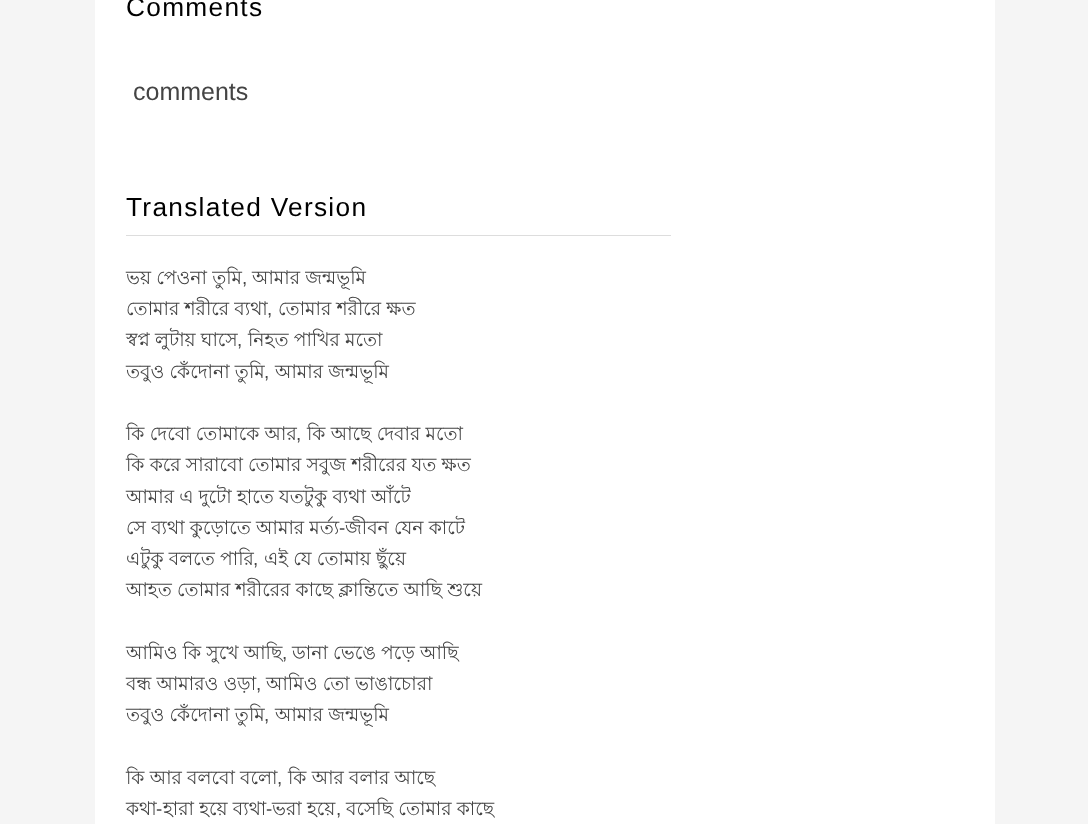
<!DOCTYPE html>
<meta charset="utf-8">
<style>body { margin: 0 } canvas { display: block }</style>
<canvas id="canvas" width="1088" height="824"></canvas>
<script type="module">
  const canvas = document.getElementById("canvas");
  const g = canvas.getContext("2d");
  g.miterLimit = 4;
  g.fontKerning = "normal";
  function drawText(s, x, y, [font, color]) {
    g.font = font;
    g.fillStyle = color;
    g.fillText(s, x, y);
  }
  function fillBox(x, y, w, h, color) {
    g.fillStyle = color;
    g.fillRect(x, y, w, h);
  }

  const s1 = ["26.25px Liberation Sans", "#000000"];
  const s2 = ["25px Liberation Sans", "#444444"];
  const s3 = ["18.75px Lohit Bengali", "#444444"];
  const s4 = ["18.75px Liberation Sans", "#444444"];

  fillBox(0, 0, 1088, 824, "#F5F5F5");
  fillBox(95, 0, 900, 824, "#FFFFFF");
  g.letterSpacing = "1.3px";
  drawText("Comments", 126, 16, s1);
  g.letterSpacing = "0px";
  drawText("comments", 133, 100, s2);
  fillBox(126, 235, 545, 1, "#DDDDDD");
  g.letterSpacing = "1.3px";
  drawText("Translated Version", 126, 216, s1);
  g.letterSpacing = "0px";
  drawText("ভয় পেওনা তুমি", 126, 284, s3);
  drawText(",", 242, 284, s4);
  drawText("আমার জন্মভূমি", 252, 284, s3);
  drawText("তোমার শরীরে ব্যথা", 126, 315, s3);
  drawText(",", 267, 315, s4);
  drawText("তোমার শরীরে ক্ষত", 278, 315, s3);
  drawText("স্বপ্ন লুটায় ঘাসে", 126, 346, s3);
  drawText(",", 237, 346, s4);
  drawText("নিহত পাখির মতো", 248, 346, s3);
  drawText("তবুও কেঁদোনা তুমি", 126, 378, s3);
  drawText(",", 264, 378, s4);
  drawText("আমার জন্মভূমি", 275, 378, s3);
  drawText("কি দেবো তোমাকে আর", 126, 440, s3);
  drawText(",", 296, 440, s4);
  drawText("কি আছে দেবার মতো", 307, 440, s3);
  drawText("কি করে সারাবো তোমার সবুজ শরীরের যত ক্ষত", 126, 471, s3);
  drawText("আমার এ দুটো হাতে যতটুকু ব্যথা আঁটে", 126, 503, s3);
  drawText("সে ব্যথা কুড়োতে আমার মর্ত্য", 126, 534, s3);
  drawText("-", 339, 534, s4);
  drawText("জীবন যেন কাটে", 345, 534, s3);
  drawText("এটুকু বলতে পারি", 126, 565, s3);
  drawText(",", 253, 565, s4);
  drawText("এই যে তোমায় ছুঁয়ে", 264, 565, s3);
  drawText("আহত তোমার শরীরের কাছে ক্লান্তিতে আছি শুয়ে", 126, 596, s3);
  drawText("আমিও কি সুখে আছি", 126, 659, s3);
  drawText(",", 282, 659, s4);
  drawText("ডানা ভেঙে পড়ে আছি", 292, 659, s3);
  drawText("বন্ধ আমারও ওড়া", 126, 690, s3);
  drawText(",", 256, 690, s4);
  drawText("আমিও তো ভাঙাচোরা", 266, 690, s3);
  drawText("তবুও কেঁদোনা তুমি", 126, 721, s3);
  drawText(",", 264, 721, s4);
  drawText("আমার জন্মভূমি", 275, 721, s3);
  drawText("কি আর বলবো বলো", 126, 784, s3);
  drawText(",", 277, 784, s4);
  drawText("কি আর বলার আছে", 288, 784, s3);
  drawText("কথা", 126, 815, s3);
  drawText("-", 156, 815, s4);
  drawText("হারা হয়ে ব্যথা", 163, 815, s3);
  drawText("-", 266, 815, s4);
  drawText("ভরা হয়ে", 272, 815, s3);
  drawText("বসেছি তোমার কাছে", 346, 815, s3);
  drawText(",", 336, 815, s4);
</script>
